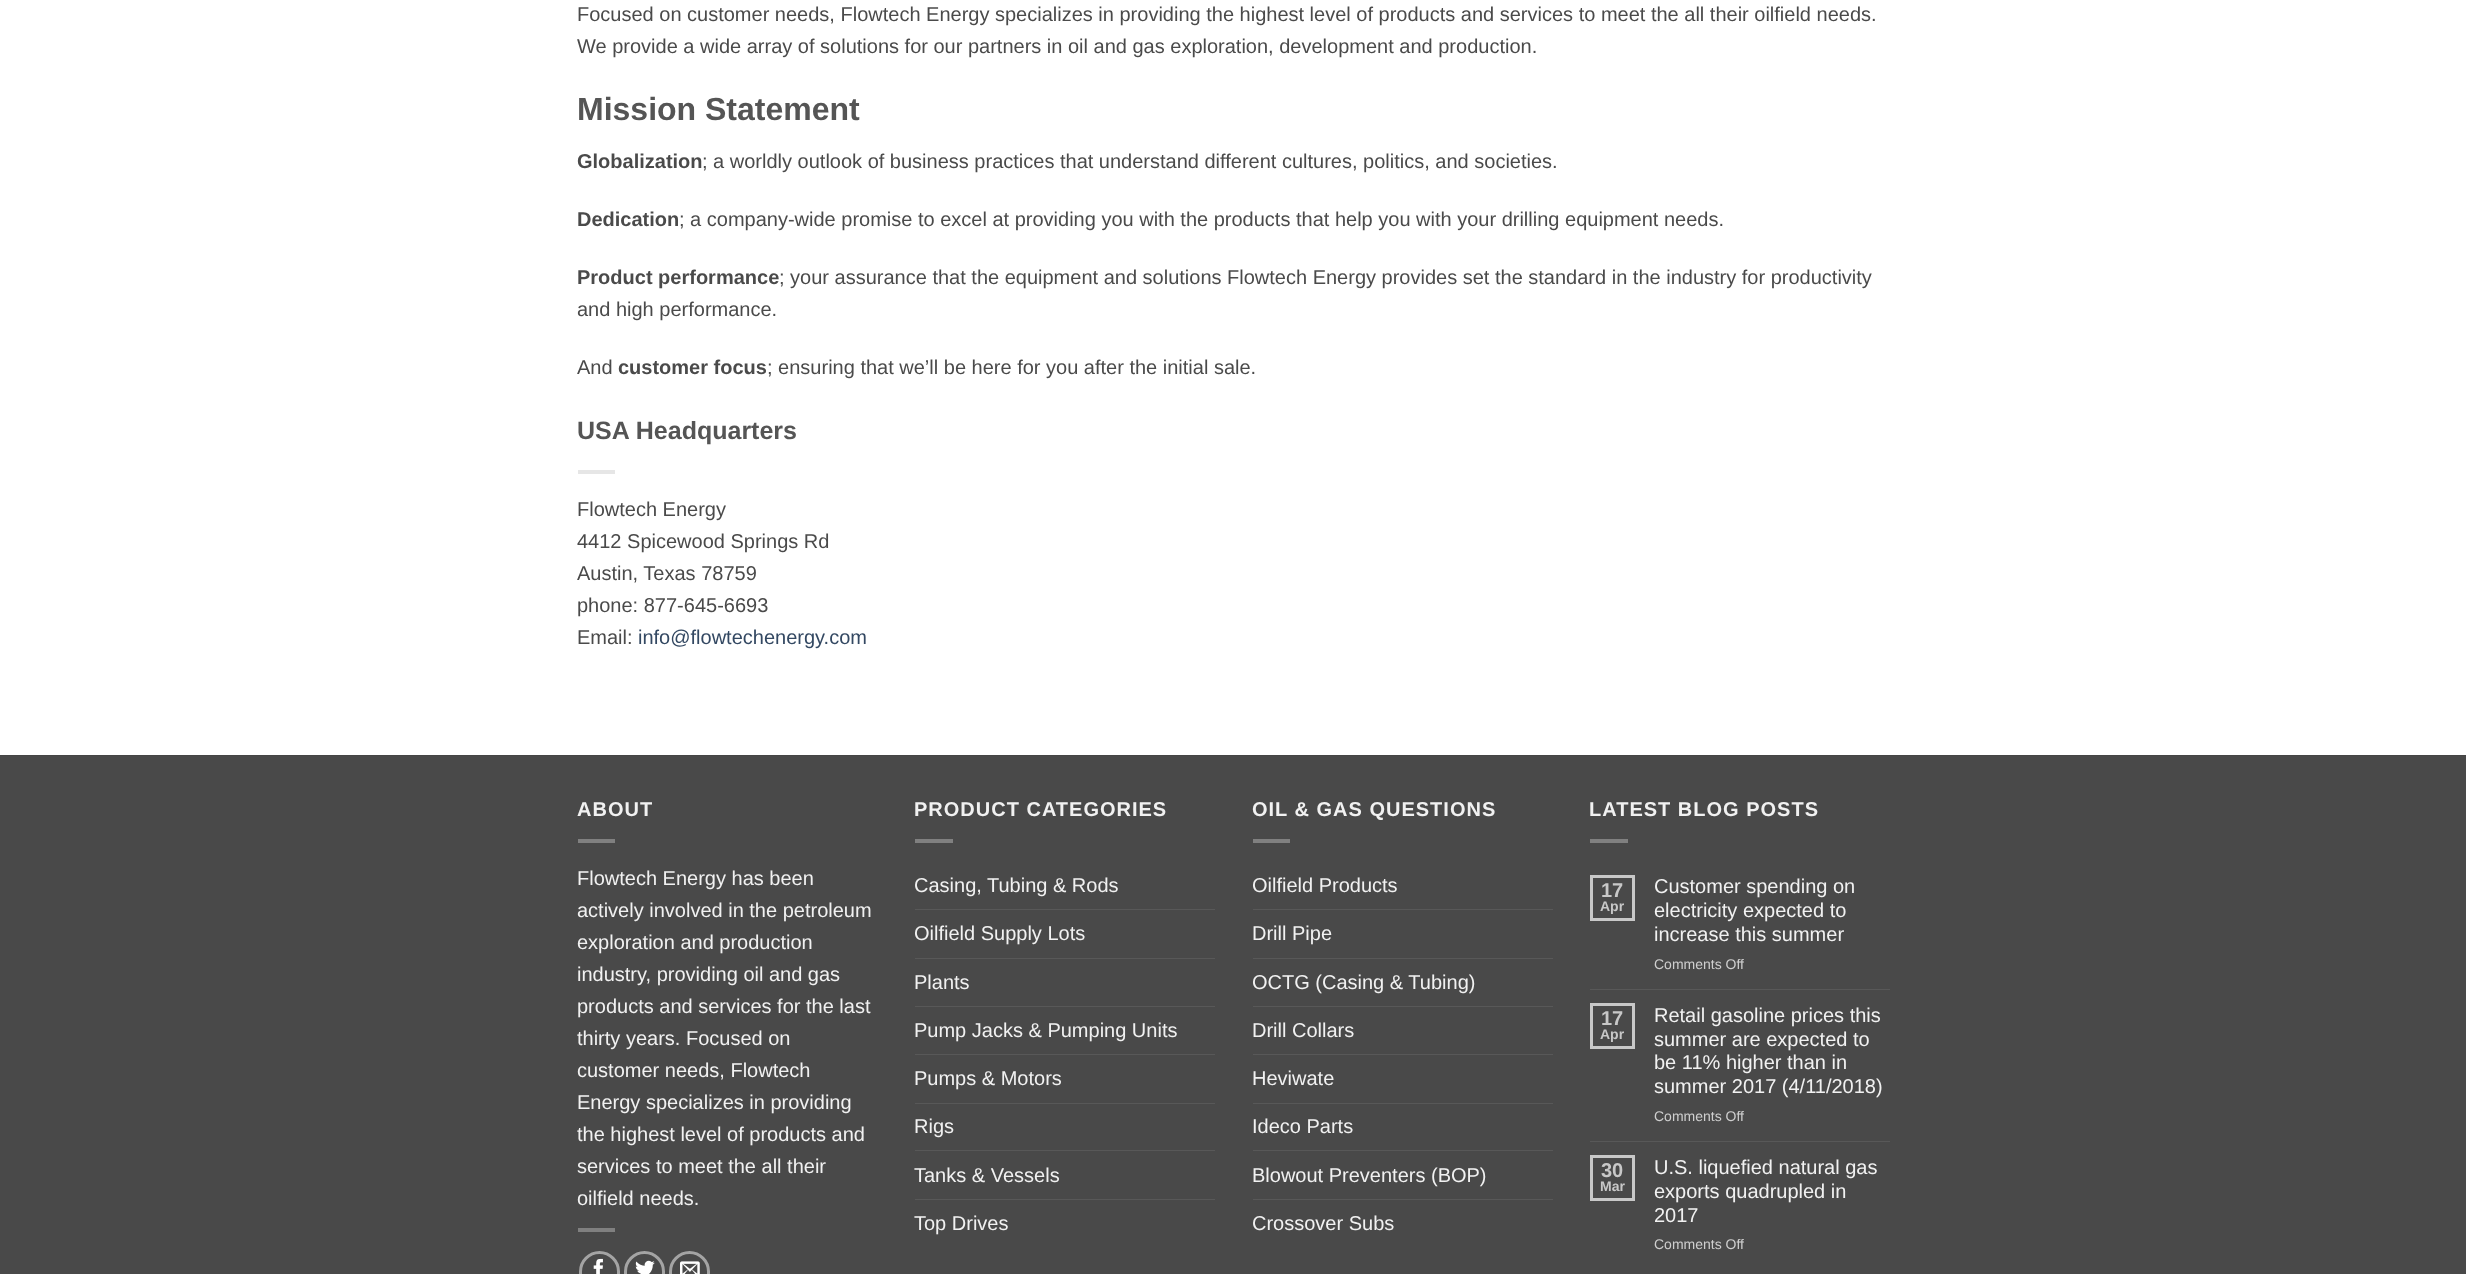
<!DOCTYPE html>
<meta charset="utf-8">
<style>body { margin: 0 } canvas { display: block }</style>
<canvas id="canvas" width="2466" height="1274"></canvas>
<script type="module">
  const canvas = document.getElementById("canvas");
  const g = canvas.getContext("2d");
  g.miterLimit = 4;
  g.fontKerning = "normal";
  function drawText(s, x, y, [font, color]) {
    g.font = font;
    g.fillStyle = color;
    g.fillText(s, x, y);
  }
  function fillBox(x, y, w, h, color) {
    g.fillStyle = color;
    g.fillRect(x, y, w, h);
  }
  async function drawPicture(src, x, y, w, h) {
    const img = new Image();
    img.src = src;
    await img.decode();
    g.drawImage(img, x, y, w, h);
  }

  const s1 = ["20px Liberation Sans", "#4A4A4A"];
  const s2 = ["bold 32px Liberation Sans", "#555555"];
  const s3 = ["bold 20px Liberation Sans", "#4A4A4A"];
  const s4 = ["bold 25px Liberation Sans", "#555555"];
  const s5 = ["20px Liberation Sans", "#334862"];
  const s6 = ["bold 20px Liberation Sans", "#F1F1F1"];
  const s7 = ["20px Liberation Sans", "#F1F1F1"];
  const s8 = ["bold 20px Liberation Sans", "#C8C8C8"];
  const s9 = ["bold 14px Liberation Sans", "#C8C8C8"];
  const s10 = ["14px Liberation Sans", "#CFCFCF"];

  fillBox(0, 0, 2466, 1274, "#FFFFFF");
  drawText("Focused on customer needs, Flowtech Energy specializes in providing the highest level of products and services to meet the all their oilfield needs.", 577, 21, s1);
  drawText("We provide a wide array of solutions for our partners in oil and gas exploration, development and production.", 577, 53, s1);
  drawText("Mission Statement", 577, 120, s2);
  drawText("Globalization", 577, 168, s3);
  drawText("; a worldly outlook of business practices that understand different cultures, politics, and societies.", 702, 168, s1);
  drawText("Dedication", 577, 226, s3);
  drawText("; a company-wide promise to excel at providing you with the products that help you with your drilling equipment needs.", 679, 226, s1);
  drawText("Product performance", 577, 284, s3);
  drawText("; your assurance that the equipment and solutions Flowtech Energy provides set the standard in the industry for productivity", 779, 284, s1);
  drawText("and high performance.", 577, 316, s1);
  drawText("And", 577, 374, s1);
  drawText("customer focus", 618, 374, s3);
  drawText("; ensuring that we’ll be here for you after the initial sale.", 767, 374, s1);
  drawText("USA Headquarters", 577, 439, s4);
  fillBox(578, 470, 37, 4, "#E6E6E6");
  drawText("Flowtech Energy", 577, 516, s1);
  drawText("4412 Spicewood Springs Rd", 577, 548, s1);
  drawText("Austin, Texas 78759", 577, 580, s1);
  drawText("phone: 877-645-6693", 577, 612, s1);
  drawText("Email:", 577, 644, s1);
  drawText("info@flowtechenergy.com", 638, 644, s5);
  fillBox(0, 756, 2466, 518, "#494949");
  fillBox(0, 755, 2466, 1, "#454545");
  g.letterSpacing = "1px";
  drawText("ABOUT", 577, 816, s6);
  fillBox(578, 839, 37, 4, "#808080");
  g.letterSpacing = "0px";
  drawText("Flowtech Energy has been", 577, 885, s7);
  drawText("actively involved in the petroleum", 577, 917, s7);
  drawText("exploration and production", 577, 949, s7);
  drawText("industry, providing oil and gas", 577, 981, s7);
  drawText("products and services for the last", 577, 1013, s7);
  drawText("thirty years. Focused on", 577, 1045, s7);
  drawText("customer needs, Flowtech", 577, 1077, s7);
  drawText("Energy specializes in providing", 577, 1109, s7);
  drawText("the highest level of products and", 577, 1141, s7);
  drawText("services to meet the all their", 577, 1173, s7);
  drawText("oilfield needs.", 577, 1205, s7);
  fillBox(578, 1228, 37, 4, "#808080");
  g.beginPath();
  g.roundRect(580.5, 1252.5, 38, 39, 19);
  g.strokeStyle = "#A4A4A4";
  g.lineWidth = 3;
  g.stroke();
  await drawPicture("pic1.png", 593, 1258, 10, 16);
  g.beginPath();
  g.roundRect(625.5, 1252.5, 38, 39, 19);
  g.stroke();
  await drawPicture("pic2.png", 635, 1260, 20, 14);
  g.beginPath();
  g.roundRect(670.5, 1252.5, 38, 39, 19);
  g.stroke();
  await drawPicture("pic3.png", 680, 1261, 20, 13);
  g.letterSpacing = "1px";
  drawText("PRODUCT CATEGORIES", 914, 816, s6);
  fillBox(915, 839, 38, 4, "#808080");
  g.letterSpacing = "0px";
  drawText("Casing, Tubing & Rods", 914, 892, s7);
  fillBox(915, 909, 300, 1, "#585858");
  drawText("Oilfield Supply Lots", 914, 940, s7);
  fillBox(915, 958, 300, 1, "#585858");
  drawText("Plants", 914, 989, s7);
  fillBox(915, 1006, 300, 1, "#585858");
  drawText("Pump Jacks & Pumping Units", 914, 1037, s7);
  fillBox(915, 1054, 300, 1, "#585858");
  drawText("Pumps & Motors", 914, 1085, s7);
  fillBox(915, 1103, 300, 1, "#585858");
  drawText("Rigs", 914, 1133, s7);
  fillBox(915, 1150, 300, 1, "#585858");
  drawText("Tanks & Vessels", 914, 1182, s7);
  fillBox(915, 1199, 300, 1, "#585858");
  drawText("Top Drives", 914, 1230, s7);
  g.letterSpacing = "1px";
  drawText("OIL & GAS QUESTIONS", 1252, 816, s6);
  fillBox(1253, 839, 37, 4, "#808080");
  g.letterSpacing = "0px";
  drawText("Oilfield Products", 1252, 892, s7);
  fillBox(1253, 909, 300, 1, "#585858");
  drawText("Drill Pipe", 1252, 940, s7);
  fillBox(1253, 958, 300, 1, "#585858");
  drawText("OCTG (Casing & Tubing)", 1252, 989, s7);
  fillBox(1253, 1006, 300, 1, "#585858");
  drawText("Drill Collars", 1252, 1037, s7);
  fillBox(1253, 1054, 300, 1, "#585858");
  drawText("Heviwate", 1252, 1085, s7);
  fillBox(1253, 1103, 300, 1, "#585858");
  drawText("Ideco Parts", 1252, 1133, s7);
  fillBox(1253, 1150, 300, 1, "#585858");
  drawText("Blowout Preventers (BOP)", 1252, 1182, s7);
  fillBox(1253, 1199, 300, 1, "#585858");
  drawText("Crossover Subs", 1252, 1230, s7);
  g.letterSpacing = "1px";
  drawText("LATEST BLOG POSTS", 1589, 816, s6);
  fillBox(1590, 839, 38, 4, "#808080");
  g.strokeStyle = "#C8C8C8";
  g.strokeRect(1591.5, 876.5, 42, 43);
  g.letterSpacing = "0px";
  drawText("17", 1601, 897, s8);
  drawText("Apr", 1600, 911, s9);
  drawText("Customer spending on", 1654, 893, s7);
  drawText("electricity expected to", 1654, 917, s7);
  drawText("increase this summer", 1654, 941, s7);
  drawText("Comments Off", 1654, 969, s10);
  fillBox(1590, 989, 300, 1, "#585858");
  g.strokeRect(1591.5, 1004.5, 42, 43);
  drawText("17", 1601, 1025, s8);
  drawText("Apr", 1600, 1039, s9);
  drawText("Retail gasoline prices this", 1654, 1022, s7);
  drawText("summer are expected to", 1654, 1046, s7);
  drawText("be 11% higher than in", 1654, 1069, s7);
  drawText("summer 2017 (4/11/2018)", 1654, 1093, s7);
  drawText("Comments Off", 1654, 1121, s10);
  fillBox(1590, 1141, 300, 1, "#585858");
  g.strokeRect(1591.5, 1156.5, 42, 43);
  drawText("30", 1601, 1177, s8);
  drawText("Mar", 1600, 1191, s9);
  drawText("U.S. liquefied natural gas", 1654, 1174, s7);
  drawText("exports quadrupled in", 1654, 1198, s7);
  drawText("2017", 1654, 1222, s7);
  drawText("Comments Off", 1654, 1249, s10);
</script>
